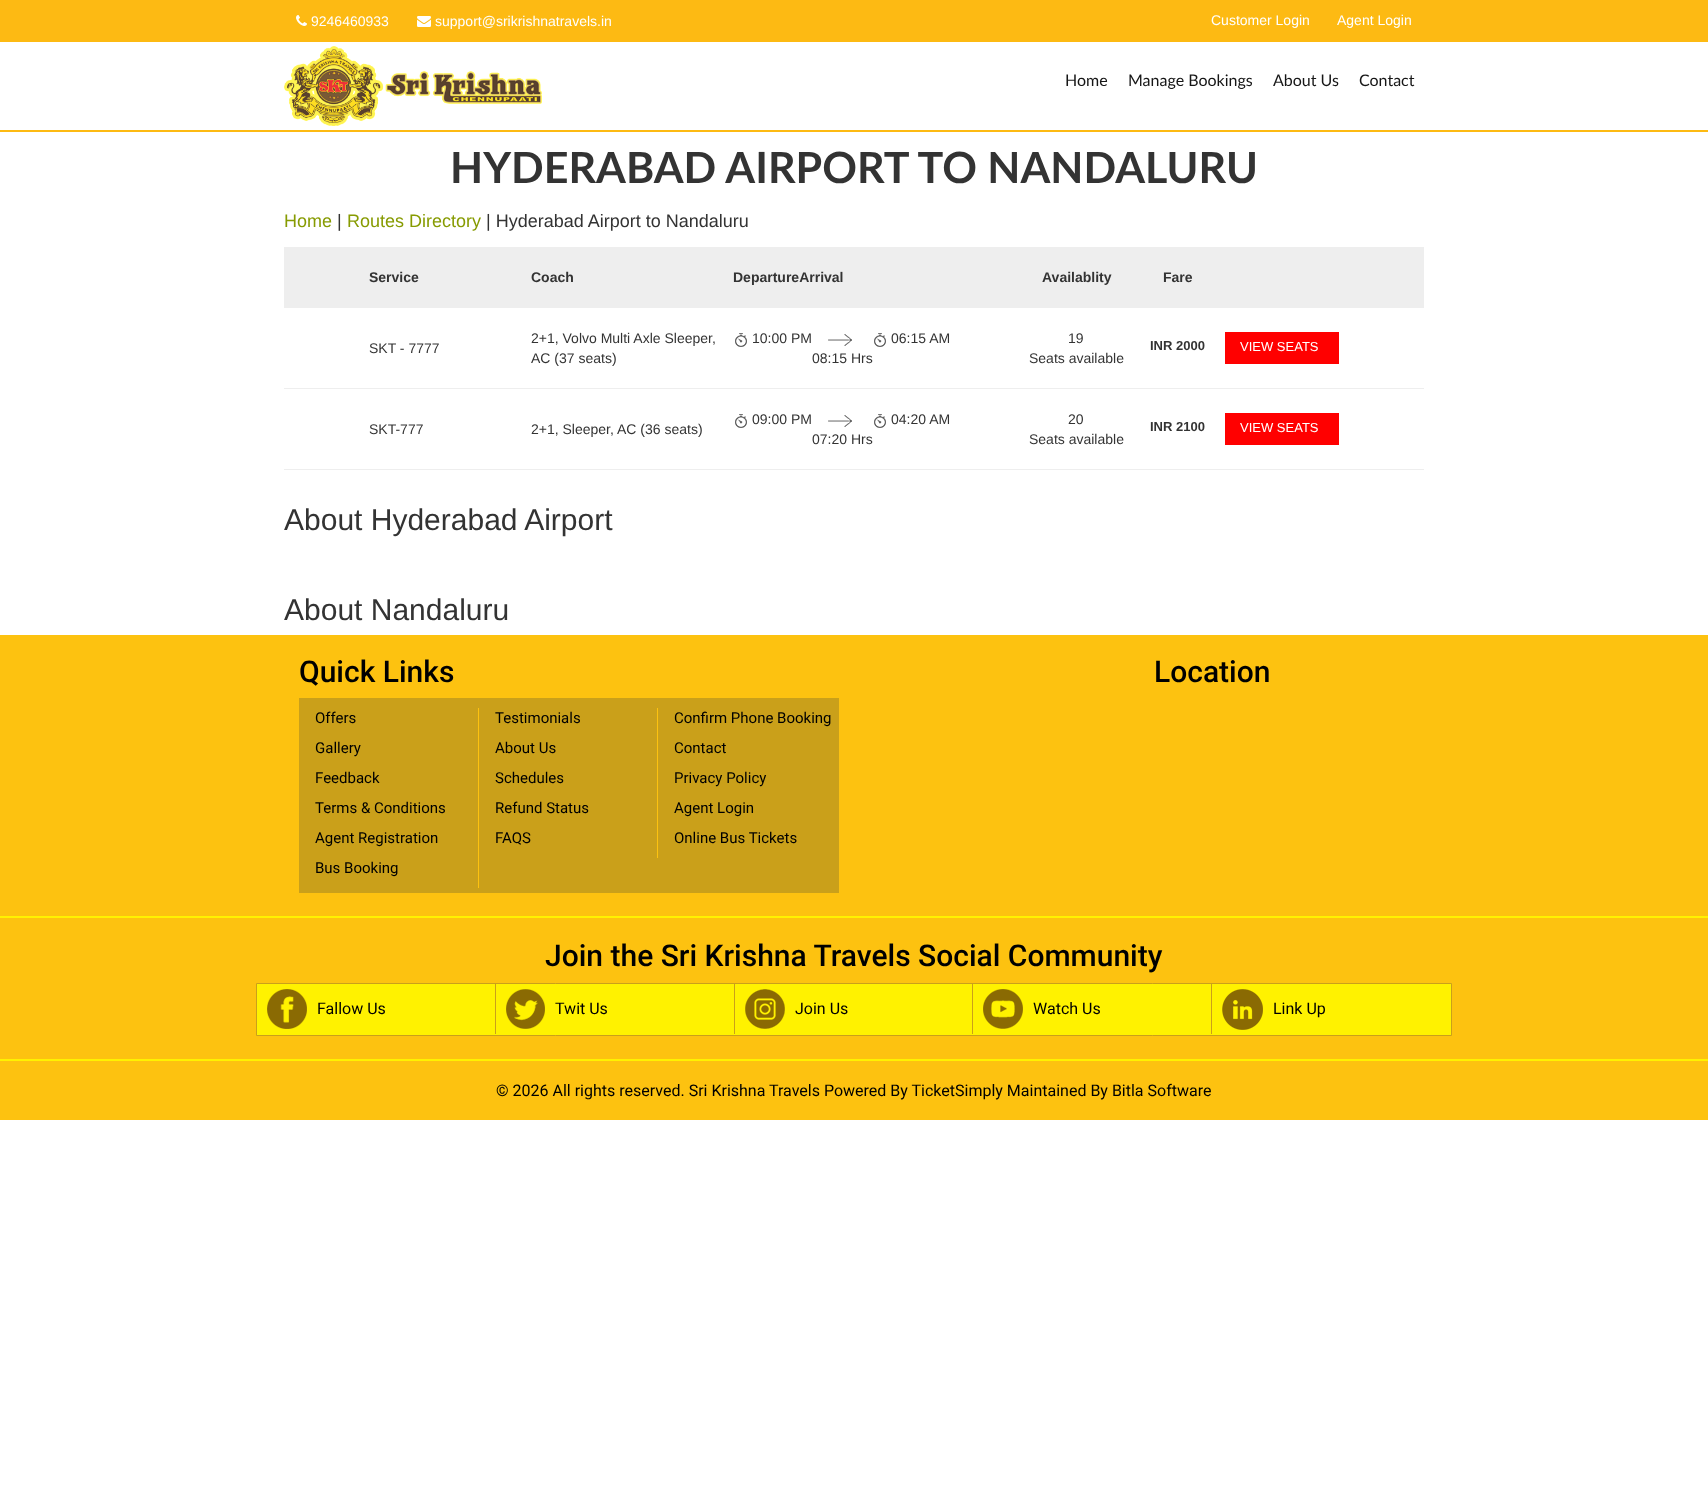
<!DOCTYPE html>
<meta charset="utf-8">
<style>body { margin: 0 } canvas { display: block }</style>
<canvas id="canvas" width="1708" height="1487"></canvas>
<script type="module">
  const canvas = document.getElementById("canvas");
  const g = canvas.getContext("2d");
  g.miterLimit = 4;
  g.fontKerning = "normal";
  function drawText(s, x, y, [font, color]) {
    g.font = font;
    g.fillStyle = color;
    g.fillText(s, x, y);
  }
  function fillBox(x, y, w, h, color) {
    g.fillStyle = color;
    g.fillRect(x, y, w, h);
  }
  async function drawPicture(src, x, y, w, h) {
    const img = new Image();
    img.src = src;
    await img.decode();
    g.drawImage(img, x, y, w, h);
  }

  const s1 = ["14px Liberation Sans", "#FFFFFF"];
  const s2 = ["16px Lato", "#161616"];
  const s3 = ["bold 43px Lato", "#333333"];
  const s4 = ["18px Liberation Sans", "#879B02"];
  const s5 = ["18px Liberation Sans", "#333333"];
  const s6 = ["bold 14px Liberation Sans", "#333333"];
  const s7 = ["14px Liberation Sans", "#333333"];
  const s8 = ["bold 13px Liberation Sans", "#333333"];
  const s9 = ["13px Liberation Sans", "#FFFFFF"];
  const s10 = ["30px Liberation Sans", "#333333"];
  const s11 = ["500 30px Roboto", "#000000"];
  const s12 = ["15px Roboto", "#000000"];
  const s13 = ["16px Roboto", "#000000"];

  fillBox(0, 0, 1708, 1487, "#FFFFFF");
  fillBox(0, 130, 1708, 2, "#FDBA13");
  fillBox(0, 0, 1708, 42, "#FDBA13");
  await drawPicture("pic1.png", 296, 15, 11, 11);
  drawText("9246460933", 311, 26, s1);
  await drawPicture("pic2.png", 417, 16, 14, 11);
  drawText("support@srikrishnatravels.in", 435, 26, s1);
  drawText("Customer Login", 1211, 25, s1);
  drawText("Agent Login", 1337, 25, s1);
  await drawPicture("pic3.png", 284, 46, 258, 80);
  drawText("Home", 1065, 86, s2);
  drawText("Manage Bookings", 1128, 86, s2);
  drawText("About Us", 1273, 86, s2);
  drawText("Contact", 1359, 86, s2);
  drawText("HYDERABAD AIRPORT TO NANDALURU", 450, 183, s3);
  drawText("Home", 284, 227, s4);
  drawText("|", 337, 227, s5);
  drawText("Routes Directory", 347, 227, s4);
  drawText("| Hyderabad Airport to Nandaluru", 486, 227, s5);
  fillBox(284, 247, 1140, 61, "#EEEEEE");
  drawText("Service", 369, 282, s6);
  drawText("Coach", 531, 282, s6);
  drawText("DepartureArrival", 733, 282, s6);
  drawText("Availablity", 1042, 282, s6);
  drawText("Fare", 1163, 282, s6);
  fillBox(284, 388, 1140, 1, "#EEEEEE");
  drawText("SKT - 7777", 369, 353, s7);
  drawText("2+1, Volvo Multi Axle Sleeper,", 531, 343, s7);
  drawText("AC (37 seats)", 531, 363, s7);
  await drawPicture("pic4.png", 735, 333, 12, 14);
  drawText("10:00 PM", 752, 343, s7);
  await drawPicture("pic4.png", 874, 333, 12, 14);
  drawText("06:15 AM", 891, 343, s7);
  await drawPicture("pic5.png", 828, 334, 24, 12);
  drawText("08:15 Hrs", 812, 363, s7);
  drawText("19", 1068, 343, s7);
  drawText("Seats available", 1029, 363, s7);
  drawText("INR 2000", 1150, 350, s8);
  fillBox(1225, 332, 114, 32, "#FF0000");
  drawText("VIEW SEATS", 1240, 351, s9);
  fillBox(284, 469, 1140, 1, "#EEEEEE");
  drawText("SKT-777", 369, 434, s7);
  drawText("2+1, Sleeper, AC (36 seats)", 531, 434, s7);
  await drawPicture("pic4.png", 735, 414, 12, 14);
  drawText("09:00 PM", 752, 424, s7);
  await drawPicture("pic4.png", 874, 414, 12, 14);
  drawText("04:20 AM", 891, 424, s7);
  await drawPicture("pic5.png", 828, 415, 24, 12);
  drawText("07:20 Hrs", 812, 444, s7);
  drawText("20", 1068, 424, s7);
  drawText("Seats available", 1029, 444, s7);
  drawText("INR 2100", 1150, 431, s8);
  fillBox(1225, 413, 114, 32, "#FF0000");
  drawText("VIEW SEATS", 1240, 432, s9);
  drawText("About Hyderabad Airport", 284, 530, s10);
  drawText("About Nandaluru", 284, 620, s10);
  fillBox(0, 635, 1708, 485, "#FDC210");
  fillBox(0, 916, 1708, 2, "#FFF200");
  drawText("Quick Links", 299, 682, s11);
  fillBox(299, 698, 540, 195, "#CAA01A");
  fillBox(478, 708, 1, 180, "#FDC210");
  drawText("Offers", 315, 723, s12);
  fillBox(657, 708, 1, 150, "#FDC210");
  drawText("Testimonials", 495, 723, s12);
  drawText("Confirm Phone Booking", 674, 723, s12);
  drawText("Gallery", 315, 753, s12);
  drawText("About Us", 495, 753, s12);
  drawText("Contact", 674, 753, s12);
  drawText("Feedback", 315, 783, s12);
  drawText("Schedules", 495, 783, s12);
  drawText("Privacy Policy", 674, 783, s12);
  drawText("Terms & Conditions", 315, 813, s12);
  drawText("Refund Status", 495, 813, s12);
  drawText("Agent Login", 674, 813, s12);
  drawText("Agent Registration", 315, 843, s12);
  drawText("FAQS", 495, 843, s12);
  drawText("Online Bus Tickets", 674, 843, s12);
  drawText("Bus Booking", 315, 873, s12);
  drawText("Location", 1154, 682, s11);
  drawText("Join the Sri Krishna Travels Social Community", 545, 966, s11);
  g.fillStyle = "#FFF200";
  g.beginPath();
  g.rect(256.5, 983.5, 1195, 52);
  g.fill();
  g.strokeStyle = "#CAA01A";
  g.stroke();
  fillBox(495, 984, 1, 50, "#CAA01A");
  await drawPicture("pic6.png", 267, 989, 40, 40);
  drawText("Fallow Us", 317, 1014, s13);
  fillBox(734, 984, 1, 50, "#CAA01A");
  await drawPicture("pic7.png", 506, 989, 39, 40);
  drawText("Twit Us", 555, 1014, s13);
  fillBox(972, 984, 1, 50, "#CAA01A");
  await drawPicture("pic8.png", 745, 989, 40, 40);
  drawText("Join Us", 795, 1014, s13);
  fillBox(1211, 984, 1, 50, "#CAA01A");
  await drawPicture("pic9.png", 983, 989, 40, 40);
  drawText("Watch Us", 1033, 1014, s13);
  await drawPicture("pic10.png", 1222, 989, 41, 41);
  drawText("Link Up", 1273, 1014, s13);
  fillBox(0, 1059, 1708, 2, "#FFF200");
  drawText("© 2026 All rights reserved. Sri Krishna Travels Powered By TicketSimply Maintained By Bitla Software", 496, 1096, s13);
</script>
